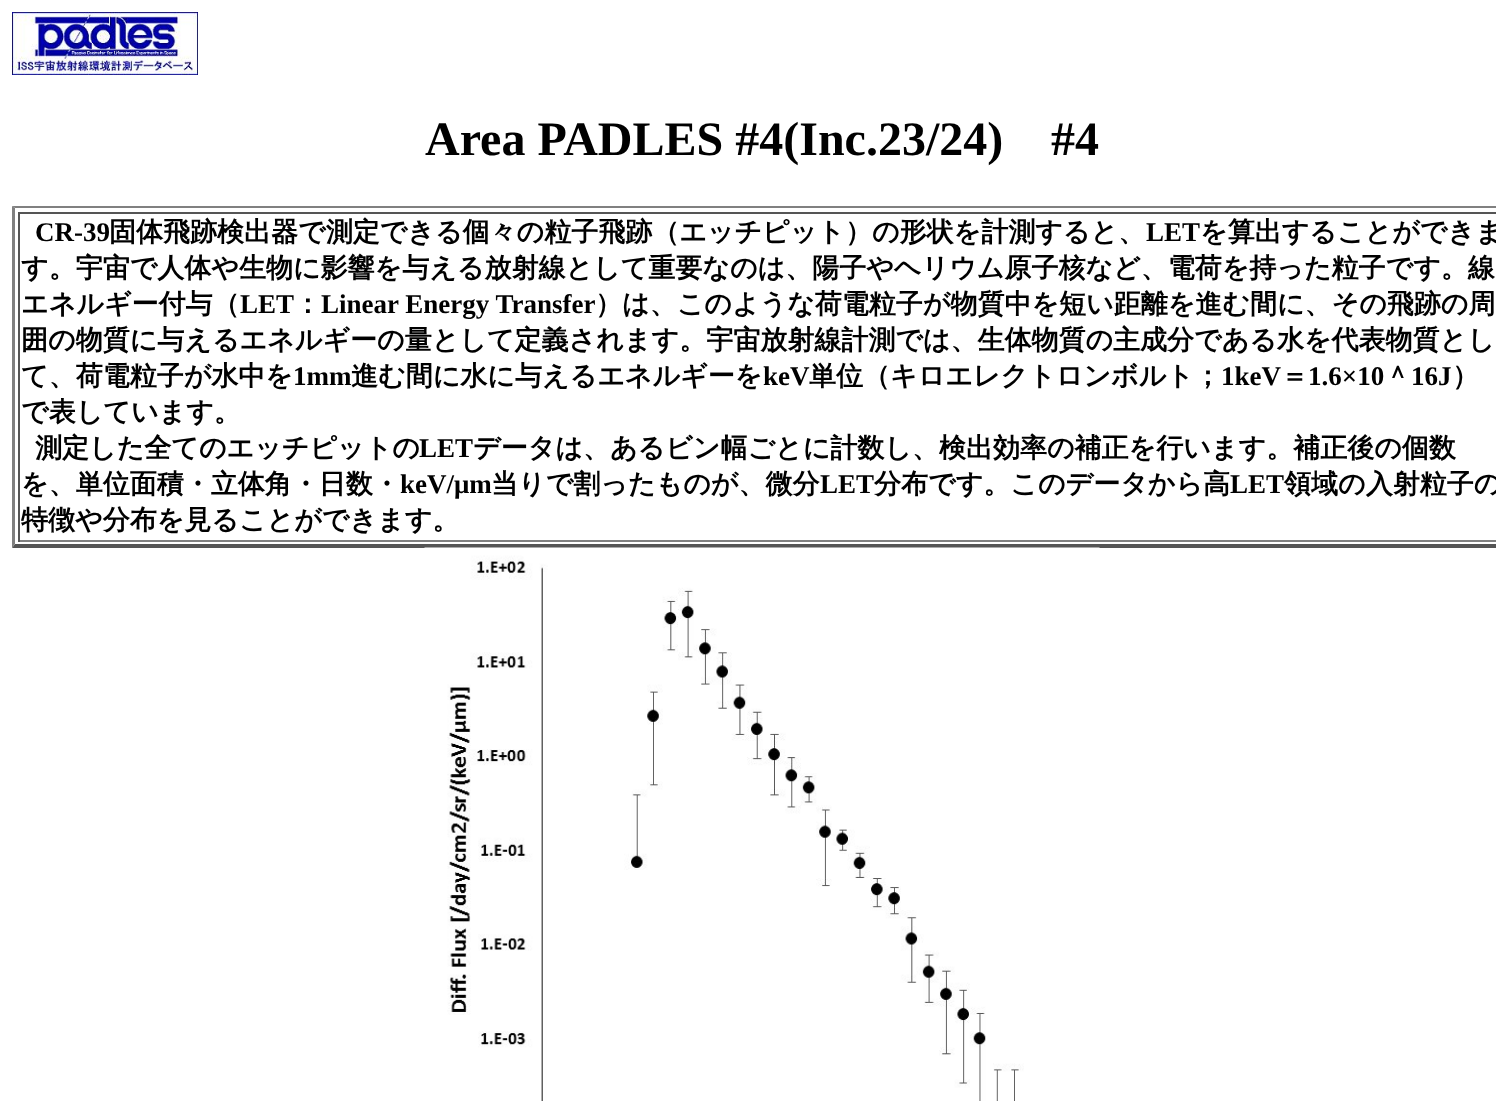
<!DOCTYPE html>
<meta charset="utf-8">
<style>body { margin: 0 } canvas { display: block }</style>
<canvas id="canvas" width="1496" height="1101"></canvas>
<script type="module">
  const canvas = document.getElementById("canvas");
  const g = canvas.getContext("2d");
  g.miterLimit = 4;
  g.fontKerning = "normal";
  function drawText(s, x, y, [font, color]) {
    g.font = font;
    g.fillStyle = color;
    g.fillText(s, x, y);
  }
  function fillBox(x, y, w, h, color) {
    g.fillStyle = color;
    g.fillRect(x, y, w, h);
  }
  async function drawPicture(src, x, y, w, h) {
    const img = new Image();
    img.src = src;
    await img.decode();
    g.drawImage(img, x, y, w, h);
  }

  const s1 = ["bold 48px Liberation Serif", "#000000"];
  const s2 = ["bold 27px Liberation Serif", "#000000"];
  const s3 = ["bold 27px WenQuanYi Zen Hei", "#000000"];

  fillBox(0, 0, 1496, 1101, "#FFFFFF");
  await drawPicture("pic1.png", 12, 12, 186, 63);
  drawText("Area PADLES #4(Inc.23/24)", 425, 155, s1);
  drawText("#4", 1051, 155, s1);
  g.fillStyle = "#808080";
  g.beginPath();
  g.moveTo(12, 206);
  g.lineTo(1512, 206);
  g.lineTo(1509, 208);
  g.lineTo(15, 208);
  g.closePath();
  g.fill();
  g.fillStyle = "#555555";
  g.beginPath();
  g.moveTo(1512, 548);
  g.lineTo(12, 548);
  g.lineTo(15, 544);
  g.lineTo(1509, 544);
  g.closePath();
  g.fill();
  g.fillStyle = "#808080";
  g.beginPath();
  g.moveTo(12, 548);
  g.lineTo(12, 206);
  g.lineTo(15, 208);
  g.lineTo(15, 544);
  g.closePath();
  g.fill();
  fillBox(18, 212, 1478, 2, "#555555");
  fillBox(18, 540, 1478, 2, "#808080");
  fillBox(18, 212, 2, 330, "#555555");
  drawText("CR-39", 35, 241, s2);
  drawText("固体飛跡検出器で測定できる個々の粒子飛跡（エッチピット）の形状を計測すると、", 109, 241, s3);
  drawText("LET", 1146, 241, s2);
  drawText("を算出することができま", 1200, 241, s3);
  drawText("す。宇宙で人体や生物に影響を与える放射線として重要なのは、陽子やヘリウム原子核など、電荷を持った粒子です。線", 21, 277, s3);
  drawText("エネルギー付与（", 21, 313, s3);
  drawText("LET", 240, 313, s2);
  drawText("：", 294, 313, s3);
  drawText("Linear Energy Transfer", 321, 313, s2);
  drawText("）は、このような荷電粒子が物質中を短い距離を進む間に、その飛跡の周", 595, 313, s3);
  drawText("囲の物質に与えるエネルギーの量として定義されます。宇宙放射線計測では、生体物質の主成分である水を代表物質とし", 21, 349, s3);
  drawText("て、荷電粒子が水中を", 21, 385, s3);
  drawText("1mm", 293, 385, s2);
  drawText("進む間に水に与えるエネルギーを", 351, 385, s3);
  drawText("keV", 763, 385, s2);
  drawText("単位（キロエレクトロンボルト；", 809, 385, s3);
  drawText("1keV", 1221, 385, s2);
  drawText("＝", 1281, 385, s3);
  drawText("1.6×10", 1308, 385, s2);
  drawText("＾", 1384, 385, s3);
  drawText("16J", 1411, 385, s2);
  drawText("）", 1452, 385, s3);
  drawText("で表しています。", 21, 421, s3);
  drawText("測定した全てのエッチピットの", 35, 457, s3);
  drawText("LET", 419, 457, s2);
  drawText("データは、あるビン幅ごとに計数し、検出効率の補正を行います。補正後の個数", 473, 457, s3);
  drawText("を、単位面積・立体角・日数・", 21, 493, s3);
  drawText("keV/μm", 400, 493, s2);
  drawText("当りで割ったものが、微分", 491, 493, s3);
  drawText("LET", 820, 493, s2);
  drawText("分布です。このデータから高", 874, 493, s3);
  drawText("LET", 1230, 493, s2);
  drawText("領域の入射粒子の", 1284, 493, s3);
  drawText("特徴や分布を見ることができます。", 21, 529, s3);
  await drawPicture("pic2.png", 424, 547, 676, 554);
</script>
